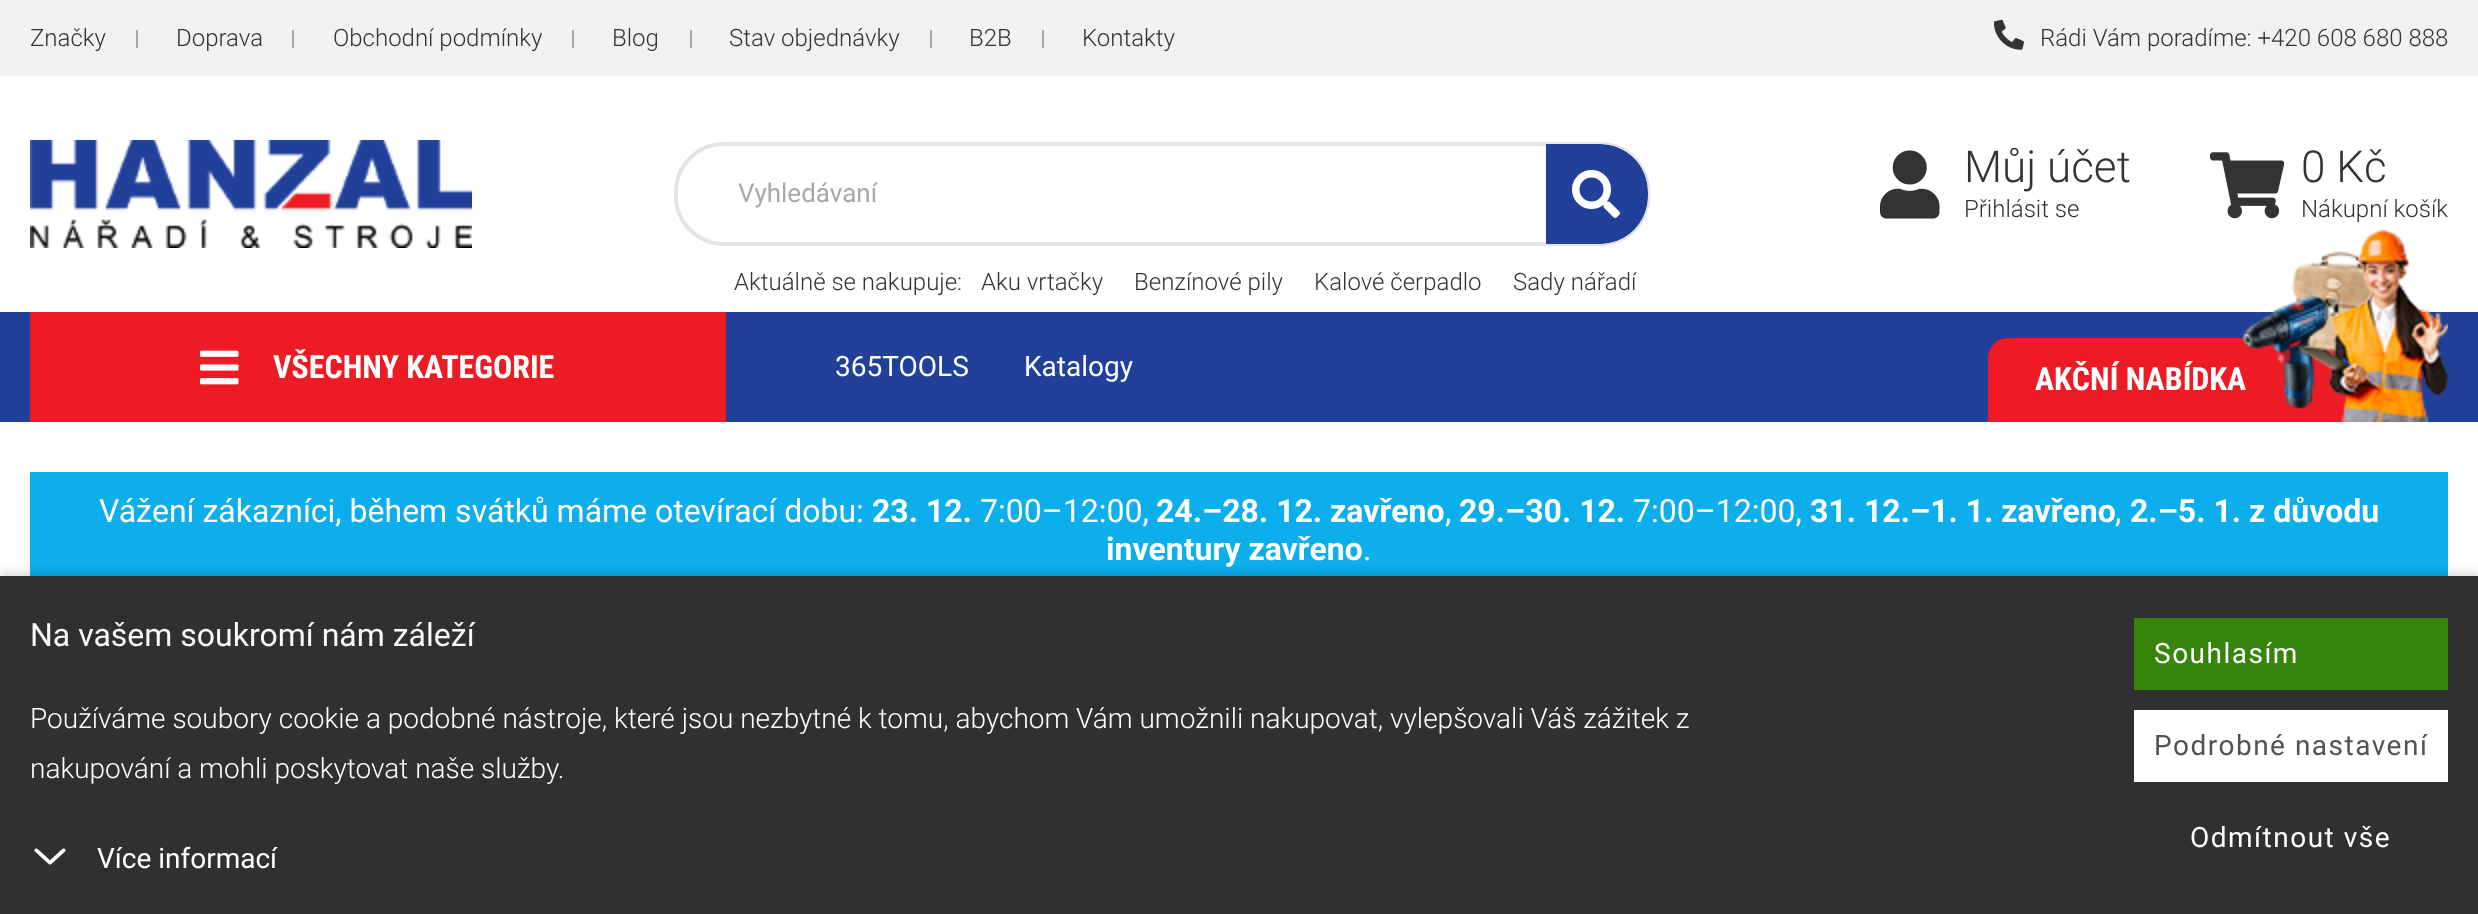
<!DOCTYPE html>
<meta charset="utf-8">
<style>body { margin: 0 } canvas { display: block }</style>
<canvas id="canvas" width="2478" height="914"></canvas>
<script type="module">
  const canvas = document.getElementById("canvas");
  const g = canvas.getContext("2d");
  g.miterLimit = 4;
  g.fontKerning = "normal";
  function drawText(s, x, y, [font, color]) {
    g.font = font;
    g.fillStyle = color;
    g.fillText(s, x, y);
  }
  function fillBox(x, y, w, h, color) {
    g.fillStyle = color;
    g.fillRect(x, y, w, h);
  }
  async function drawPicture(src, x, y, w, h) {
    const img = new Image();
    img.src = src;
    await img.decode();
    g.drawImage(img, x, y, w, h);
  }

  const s1 = ["300 24px Roboto", "#333333"];
  const s2 = ["26px Roboto", "#A7A7A7"];
  const s3 = ["300 44px Roboto", "#333333"];
  const s4 = ["bold 32px Roboto Condensed", "#FFFFFF"];
  const s5 = ["28px Roboto", "#FFFFFF"];
  const s6 = ["32px Roboto", "#FFFFFF"];
  const s7 = ["bold 32px Roboto", "#FFFFFF"];
  const s8 = ["32px Roboto", "#F8F8F8"];
  const s9 = ["300 28px Roboto", "#FFFFFF"];
  const s10 = ["28px Roboto", "#535252"];

  fillBox(0, 0, 2478, 914, "#FFFFFF");
  fillBox(0, 312, 2478, 110, "#20409A");
  fillBox(0, 0, 2478, 76, "#F1F1F1");
  drawText("Značky", 30, 46, s1);
  fillBox(136, 30, 2, 18, "#A7A7A7");
  drawText("Doprava", 176, 46, s1);
  fillBox(292, 30, 2, 18, "#A7A7A7");
  drawText("Obchodní podmínky", 333, 46, s1);
  fillBox(572, 30, 2, 18, "#A7A7A7");
  drawText("Blog", 612, 46, s1);
  fillBox(690, 30, 2, 18, "#A7A7A7");
  drawText("Stav objednávky", 729, 46, s1);
  fillBox(930, 30, 2, 18, "#A7A7A7");
  drawText("B2B", 969, 46, s1);
  fillBox(1042, 30, 2, 18, "#A7A7A7");
  drawText("Kontakty", 1082, 46, s1);
  await drawPicture("pic1.png", 1994, 19, 30, 31);
  drawText("Rádi Vám poradíme: +420 608 680 888", 2040, 46, s1);
  await drawPicture("pic2.png", 30, 140, 442, 108);
  g.beginPath();
  g.roundRect(676, 144, 972, 100, 48);
  g.strokeStyle = "#E3E3E3";
  g.lineWidth = 4;
  g.stroke();
  drawText("Vyhledávaní", 738, 202, s2);
  g.fillStyle = "#20409A";
  g.beginPath();
  g.roundRect(1546, 144, 102, 100, [0, 48, 48, 0]);
  g.fill();
  g.fillStyle = "#E3E3E3";
  g.beginPath();
  g.moveTo(1546, 142);
  g.lineTo(1600, 142);
  g.bezierCurveTo(1628, 142, 1650, 164, 1650, 192);
  g.lineTo(1650, 196);
  g.bezierCurveTo(1650, 224, 1628, 246, 1600, 246);
  g.lineTo(1546, 246);
  g.closePath();
  g.moveTo(1546, 144);
  g.lineTo(1600, 144);
  g.bezierCurveTo(1627, 144, 1648, 165, 1648, 192);
  g.lineTo(1648, 196);
  g.bezierCurveTo(1648, 223, 1627, 244, 1600, 244);
  g.lineTo(1546, 244);
  g.closePath();
  g.fill("evenodd");
  await drawPicture("pic3.png", 1572, 170, 48, 48);
  drawText("Aktuálně se nakupuje", 734, 290, s1);
  drawText(":", 957, 290, s1);
  drawText("Aku vrtačky", 981, 290, s1);
  drawText("Benzínové pily", 1134, 290, s1);
  drawText("Kalové čerpadlo", 1314, 290, s1);
  drawText("Sady nářadí", 1513, 290, s1);
  await drawPicture("pic4.png", 1880, 150, 60, 69);
  drawText("Můj účet", 1964, 182, s3);
  drawText("Přihlásit se", 1964, 217, s1);
  await drawPicture("pic5.png", 2210, 152, 75, 67);
  drawText("0 Kč", 2301, 182, s3);
  drawText("Nákupní košík", 2301, 217, s1);
  fillBox(30, 312, 696, 110, "#ED1C24");
  await drawPicture("pic6.png", 200, 350, 39, 35);
  drawText("VŠECHNY KATEGORIE", 273, 378, s4);
  drawText("365TOOLS", 835, 376, s5);
  drawText("Katalogy", 1024, 376, s5);
  g.fillStyle = "#ED1C24";
  g.beginPath();
  g.roundRect(1988, 338, 434, 84, [20, 0, 0, 0]);
  g.fill();
  drawText("AKČNÍ NABÍDKA", 2035, 390, s4);
  await drawPicture("pic7.png", 2242, 230, 206, 192);
  fillBox(30, 472, 2418, 104, "#0CAEEC");
  drawText("Vážení zákazníci, během svátků máme otevírací dobu:", 99, 522, s6);
  drawText("23. 12.", 872, 522, s7);
  drawText("7:00–12:00,", 980, 522, s6);
  drawText("24.–28. 12. zavřeno", 1156, 522, s7);
  drawText(",", 1445, 522, s6);
  drawText("29.–30. 12.", 1459, 522, s7);
  drawText("7:00–12:00,", 1633, 522, s6);
  drawText("31. 12.–1. 1. zavřeno", 1810, 522, s7);
  drawText(",", 2115, 522, s6);
  drawText("2.–5. 1. z důvodu", 2130, 522, s7);
  drawText("inventury zavřeno", 1106, 560, s7);
  drawText(".", 1363, 560, s6);
  g.fillStyle = "rgba(0, 0, 0, 0.15)";
  g.filter = "blur(4px)";
  g.beginPath();
  g.rect(0, 572, 2478, 338);
  g.fill();
  g.filter = "none";
  fillBox(0, 576, 2478, 338, "#303030");
  drawText("Na vašem soukromí nám záleží", 30, 646, s8);
  drawText("Používáme soubory cookie a podobné nástroje, které jsou nezbytné k tomu, abychom Vám umožnili nakupovat, vylepšovali Váš zážitek z", 30, 728, s9);
  drawText("nakupování a mohli poskytovat naše služby.", 30, 778, s9);
  await drawPicture("pic8.png", 34, 848, 32, 17);
  drawText("Více informací", 97, 868, s5);
  fillBox(2134, 618, 314, 72, "#36840A");
  g.letterSpacing = "1.5px";
  drawText("Souhlasím", 2154, 663, s5);
  fillBox(2134, 710, 314, 72, "#FFFFFF");
  drawText("Podrobné nastavení", 2154, 755, s10);
  drawText("Odmítnout vše", 2190, 847, s5);
</script>
